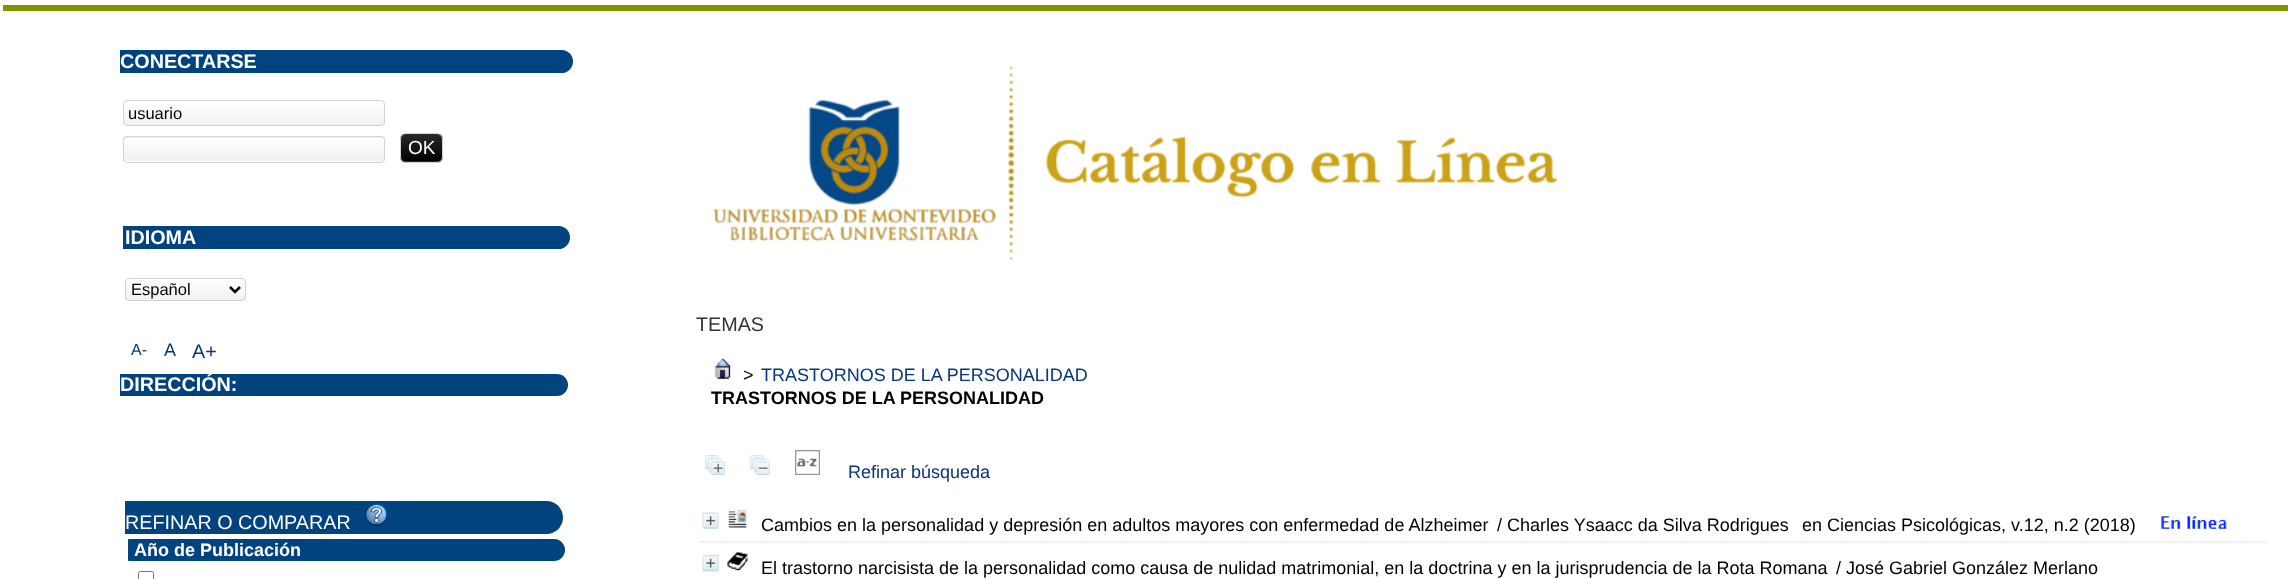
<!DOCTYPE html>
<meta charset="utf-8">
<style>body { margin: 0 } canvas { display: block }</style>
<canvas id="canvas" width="2289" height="579"></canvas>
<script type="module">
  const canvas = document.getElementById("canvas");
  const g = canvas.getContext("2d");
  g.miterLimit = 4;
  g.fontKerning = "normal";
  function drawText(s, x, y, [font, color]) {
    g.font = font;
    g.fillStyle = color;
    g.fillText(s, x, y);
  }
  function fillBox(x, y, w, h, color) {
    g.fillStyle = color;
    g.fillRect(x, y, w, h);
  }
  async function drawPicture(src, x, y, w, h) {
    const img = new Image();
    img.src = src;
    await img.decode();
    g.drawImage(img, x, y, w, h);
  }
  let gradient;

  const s1 = ["bold 19.75px Liberation Sans", "#FFFFFF"];
  const s2 = ["16.5px Liberation Sans", "#000000"];
  const s3 = ["19px Liberation Sans", "#FFFFFF"];
  const s4 = ["16px Liberation Sans", "#06367A"];
  const s5 = ["18px Liberation Sans", "#06367A"];
  const s6 = ["19.75px Liberation Sans", "#06367A"];
  const s7 = ["19.75px Liberation Sans", "#FFFFFF"];
  const s8 = ["bold 18px Liberation Sans", "#FFFFFF"];
  const s9 = ["19.75px Liberation Sans", "#333333"];
  const s10 = ["18px Liberation Sans", "#000000"];
  const s11 = ["bold 18px Liberation Sans", "#000000"];

  fillBox(0, 0, 2289, 579, "#FFFFFF");
  fillBox(3, 5, 2285, 6, "#809300");
  g.fillStyle = "#00437E";
  g.beginPath();
  g.roundRect(120, 50, 453, 23, [0, 11.5, 11.5, 0]);
  g.fill();
  drawText("CONECTARSE", 120, 68, s1);
  g.save();
  g.beginPath();
  g.roundRect(123, 100, 262, 26, 4);
  g.clip();
  gradient = g.createLinearGradient(254, 101, 254, 125);
  gradient.addColorStop(0.01, "#FFFFFF");
  gradient.addColorStop(1, "#F1F1F1");
  g.fillStyle = gradient;
  g.fillRect(123, 101, 262, 24);
  g.restore();
  g.beginPath();
  g.roundRect(123.5, 100.5, 261, 25, 3.5);
  g.strokeStyle = "#D2D2D2";
  g.stroke();
  drawText("usuario", 128, 119, s2);
  g.save();
  g.beginPath();
  g.roundRect(123, 136, 262, 27, 4);
  g.clip();
  gradient = g.createLinearGradient(254, 114, 254, 138);
  gradient.addColorStop(0.01, "#FFFFFF");
  gradient.addColorStop(1, "#F1F1F1");
  g.fillStyle = gradient;
  g.fillRect(123, 136, 262, 2);
  gradient = g.createLinearGradient(254, 137, 254, 161);
  gradient.addColorStop(0.01, "#FFFFFF");
  gradient.addColorStop(1, "#F1F1F1");
  g.fillStyle = gradient;
  g.fillRect(123, 138, 262, 23);
  g.restore();
  g.beginPath();
  g.roundRect(123.5, 136.5, 261, 26, 3.5);
  g.stroke();
  g.save();
  g.beginPath();
  g.roundRect(400, 133, 43, 30, 6);
  g.clip();
  gradient = g.createLinearGradient(421, 134, 421, 161);
  gradient.addColorStop(0, "#2A2A2A");
  gradient.addColorStop(1, "#000000");
  g.fillStyle = gradient;
  g.fillRect(400, 134, 43, 27);
  gradient = g.createLinearGradient(421, 161, 421, 189);
  gradient.addColorStop(0, "#2A2A2A");
  gradient.addColorStop(1, "#000000");
  g.fillStyle = gradient;
  g.fillRect(400, 161, 43, 2);
  g.restore();
  g.beginPath();
  g.roundRect(400.5, 133.5, 42, 29, 5.5);
  g.stroke();
  drawText("OK", 408, 154, s3);
  g.fillStyle = "#00437E";
  g.beginPath();
  g.roundRect(123, 226, 447, 23, [0, 11.5, 11.5, 0]);
  g.fill();
  drawText("IDIOMA", 125, 244, s1);
  g.save();
  g.beginPath();
  g.roundRect(125, 278, 121, 23, 4);
  g.clip();
  gradient = g.createLinearGradient(186, 279, 186, 300);
  gradient.addColorStop(0.01, "#FFFFFF");
  gradient.addColorStop(1, "#F1F1F1");
  g.fillStyle = gradient;
  g.fillRect(125, 279, 121, 21);
  g.restore();
  g.beginPath();
  g.roundRect(125.5, 278.5, 120, 22, 3.5);
  g.stroke();
  g.beginPath();
  g.moveTo(230, 287);
  g.lineTo(235, 292);
  g.lineTo(240, 287);
  g.strokeStyle = "#000000";
  g.lineWidth = 2.5;
  g.stroke();
  drawText("Español", 131, 295, s2);
  drawText("A-", 131, 355, s4);
  drawText("A", 164, 356, s5);
  drawText("A+", 192, 358, s6);
  g.fillStyle = "#00437E";
  g.beginPath();
  g.roundRect(120, 374, 448, 22, [0, 11, 11, 0]);
  g.fill();
  drawText("DIRECCIÓN:", 120, 391, s1);
  g.fillStyle = "#00437E";
  g.beginPath();
  g.roundRect(125, 501, 438, 33, [0, 16.5, 16.5, 0]);
  g.fill();
  drawText("REFINAR O COMPARAR", 125, 529, s7);
  await drawPicture("pic1.png", 365, 503, 23, 23);
  g.fillStyle = "#00437E";
  g.beginPath();
  g.roundRect(128, 539, 437, 22, [1, 11, 11, 1]);
  g.fill();
  drawText("Año de Publicación", 134, 556, s8);
  g.beginPath();
  g.roundRect(138.5, 571.5, 15, 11, 2);
  g.strokeStyle = "#767676";
  g.lineWidth = 1;
  g.stroke();
  await drawPicture("pic2.png", 713, 66, 845, 195);
  drawText("TEMAS", 696, 331, s9);
  await drawPicture("pic3.png", 714, 358, 17, 21);
  drawText(">", 743, 381, s10);
  drawText("TRASTORNOS DE LA PERSONALIDAD", 761, 381, s5);
  drawText("TRASTORNOS DE LA PERSONALIDAD", 711, 404, s11);
  await drawPicture("pic4.png", 705, 455, 20, 20);
  await drawPicture("pic5.png", 750, 455, 20, 20);
  await drawPicture("pic6.png", 795, 450, 25, 25);
  drawText("Refinar búsqueda", 848, 478, s5);
  g.beginPath();
  g.moveTo(700, 542);
  g.lineTo(2267.5, 542);
  g.strokeStyle = "#CCCCCC";
  g.lineWidth = 1.2;
  g.setLineDash([1.25, 1.25]);
  g.stroke();
  await drawPicture("pic7.png", 702, 512, 17, 17);
  await drawPicture("pic8.png", 728, 510, 19, 18);
  drawText("Cambios en la personalidad y depresión en adultos mayores con enfermedad de Alzheimer", 761, 531, s10);
  drawText("/ Charles Ysaacc da Silva Rodrigues", 1497, 531, s10);
  drawText("en Ciencias Psicológicas, v.12, n.2 (2018)", 1802, 531, s10);
  await drawPicture("pic9.png", 2161, 516, 66, 13);
  await drawPicture("pic10.png", 702, 555, 17, 17);
  await drawPicture("pic11.png", 727, 552, 21, 19);
  drawText("El trastorno narcisista de la personalidad como causa de nulidad matrimonial, en la doctrina y en la jurisprudencia de la Rota Romana", 761, 574, s10);
  drawText("/ José Gabriel González Merlano", 1836, 574, s10);
</script>
